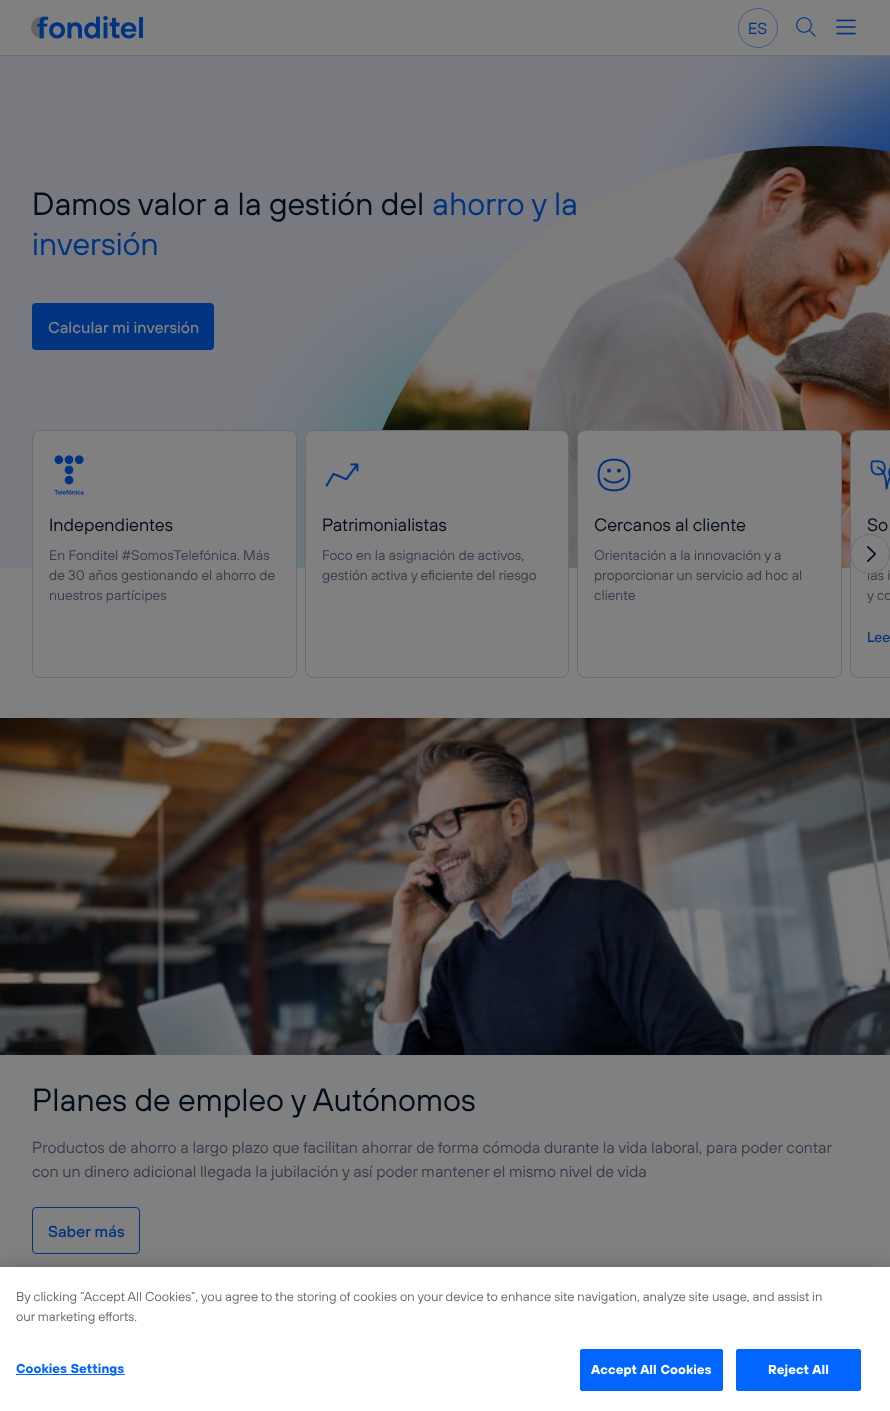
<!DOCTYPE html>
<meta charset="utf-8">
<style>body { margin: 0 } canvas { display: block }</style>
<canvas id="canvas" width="890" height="1411"></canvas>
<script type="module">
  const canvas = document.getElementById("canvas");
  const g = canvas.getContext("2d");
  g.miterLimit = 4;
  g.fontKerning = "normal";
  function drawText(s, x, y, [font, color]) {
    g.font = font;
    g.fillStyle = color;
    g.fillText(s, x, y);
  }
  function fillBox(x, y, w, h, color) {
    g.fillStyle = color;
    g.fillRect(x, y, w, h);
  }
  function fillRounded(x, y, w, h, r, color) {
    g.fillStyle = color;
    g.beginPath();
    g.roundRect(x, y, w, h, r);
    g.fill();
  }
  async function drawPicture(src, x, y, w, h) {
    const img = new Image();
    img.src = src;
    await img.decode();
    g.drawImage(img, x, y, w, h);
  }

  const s1 = ["16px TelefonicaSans", "#003380"];
  const s2 = ["32px TelefonicaSans", "#020D1A"];
  const s3 = ["32px TelefonicaSans", "#003380"];
  const s4 = ["500 16px TelefonicaSans", "#808080"];
  const s5 = ["18px TelefonicaSans", "#020D1A"];
  const s6 = ["14px TelefonicaSans", "#373C4A"];
  const s7 = ["500 14px TelefonicaSans", "#003380"];
  const s8 = ["16px TelefonicaSans", "#373C4A"];
  const s9 = ["500 16px TelefonicaSans", "#003380"];
  const s10 = ["13px TelefonicaSans", "#696969"];
  const s11 = ["bold 13px TelefonicaSans", "#0066FF"];
  const s12 = ["bold 13px TelefonicaSans", "#FFFFFF"];

  fillBox(0, 0, 890, 1411, "#808080");
  fillBox(0, 56, 890, 512, "#797A80");
  g.save();
  g.beginPath();
  g.rect(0, 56, 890, 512);
  g.clip();
  g.fillStyle = "rgba(0, 51, 128, 0.81)";
  g.filter = "blur(50px)";
  g.beginPath();
  g.roundRect(715, 57, 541, 541, 270.5);
  g.fill();
  g.filter = "none";
  g.restore();
  fillBox(0, 55, 890, 1, "#696B72");
  await drawPicture("pic1.png", 31, 16, 112, 23);
  g.beginPath();
  g.arc(758, 28, 19.5, 0, Math.PI * 2);
  g.strokeStyle = "#405A80";
  g.stroke();
  drawText("ES", 748, 34, s1);
  await drawPicture("pic2.png", 796, 17, 20, 20);
  await drawPicture("pic3.png", 836, 19, 20, 16);
  g.save();
  g.beginPath();
  g.rect(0, 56, 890, 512);
  g.clip();
  g.fillStyle = "rgba(52, 112, 115, 0.67)";
  g.filter = "blur(50px)";
  g.beginPath();
  g.roundRect(315, 334, 378, 378, 189);
  g.fill();
  g.filter = "none";
  g.restore();
  await drawPicture("pic4.png", 382, 146, 508, 422);
  drawText("Damos valor a la gestión del", 32, 215, s2);
  drawText("ahorro y la", 432, 215, s3);
  drawText("inversión", 32, 255, s3);
  fillRounded(32, 303, 182, 47, 4, "#003380");
  drawText("Calcular mi inversión", 48, 333, s4);
  g.beginPath();
  g.roundRect(32.5, 430.5, 264, 247, 7.5);
  g.fill();
  g.strokeStyle = "#696B72";
  g.stroke();
  await drawPicture("pic5.png", 54, 455, 30, 40);
  drawText("Independientes", 49, 531, s5);
  drawText("En Fonditel #SomosTelefónica. Más", 49, 560, s6);
  drawText("de 30 años gestionando el ahorro de", 49, 580, s6);
  drawText("nuestros partícipes", 49, 600, s6);
  g.fillStyle = "#808080";
  g.beginPath();
  g.roundRect(305.5, 430.5, 263, 247, 7.5);
  g.fill();
  g.stroke();
  await drawPicture("pic6.png", 325, 463, 34, 24);
  drawText("Patrimonialistas", 322, 531, s5);
  drawText("Foco en la asignación de activos,", 322, 560, s6);
  drawText("gestión activa y eficiente del riesgo", 322, 580, s6);
  g.fillStyle = "#808080";
  g.beginPath();
  g.roundRect(577.5, 430.5, 264, 247, 7.5);
  g.fill();
  g.stroke();
  await drawPicture("pic7.png", 597, 458, 34, 34);
  drawText("Cercanos al cliente", 594, 531, s5);
  drawText("Orientación a la innovación y a", 594, 560, s6);
  drawText("proporcionar un servicio ad hoc al", 594, 580, s6);
  drawText("cliente", 594, 600, s6);
  g.fillStyle = "#808080";
  g.beginPath();
  g.roundRect(850, 430, 40, 248, [8, 0, 0, 8]);
  g.fill();
  g.beginPath();
  g.roundRect(850.5, 430.5, 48, 247, 7.5);
  g.stroke();
  await drawPicture("pic8.png", 870, 460, 20, 30);
  drawText("So", 867, 531, s5);
  drawText("las i", 867, 580, s6);
  drawText("y co", 867, 600, s6);
  drawText("Lee", 867, 642, s7);
  g.fillStyle = "#808080";
  g.beginPath();
  g.arc(870, 554, 19.5, 0, Math.PI * 2);
  g.fill();
  g.stroke();
  await drawPicture("pic9.png", 867, 546, 9, 16);
  await drawPicture("pic10.png", 0, 718, 890, 337);
  drawText("Planes de empleo y Autónomos", 32, 1111, s2);
  drawText("Productos de ahorro a largo plazo que facilitan ahorrar de forma cómoda durante la vida laboral, para poder contar", 32, 1153, s8);
  drawText("con un dinero adicional llegada la jubilación y así poder mantener el mismo nivel de vida", 32, 1177, s8);
  g.beginPath();
  g.roundRect(32.5, 1207.5, 107, 46, 3.5);
  g.strokeStyle = "#003380";
  g.stroke();
  drawText("Saber más", 48, 1237, s9);
  g.fillStyle = "rgba(0, 0, 0, 0.2)";
  g.filter = "blur(9px)";
  g.beginPath();
  g.rect(0, 1267, 890, 144);
  g.fill();
  g.filter = "none";
  fillBox(0, 1267, 890, 144, "#FFFFFF");
  drawText("By clicking “Accept All Cookies”, you agree to the storing of cookies on your device to enhance site navigation, analyze site usage, and assist in", 16, 1301, s10);
  drawText("our marketing efforts.", 16, 1321, s10);
  fillBox(16, 1374, 109, 1, "#0066FF");
  g.letterSpacing = "0.1px";
  drawText("Cookies Settings", 16, 1373, s11);
  g.beginPath();
  g.roundRect(580.5, 1349.5, 142, 41, 1.5);
  g.fill();
  g.strokeStyle = "#0066FF";
  g.stroke();
  drawText("Accept All Cookies", 591, 1374, s12);
  g.fillStyle = "#0066FF";
  g.beginPath();
  g.roundRect(736.5, 1349.5, 124, 41, 1.5);
  g.fill();
  g.stroke();
  drawText("Reject All", 768, 1374, s12);
</script>
